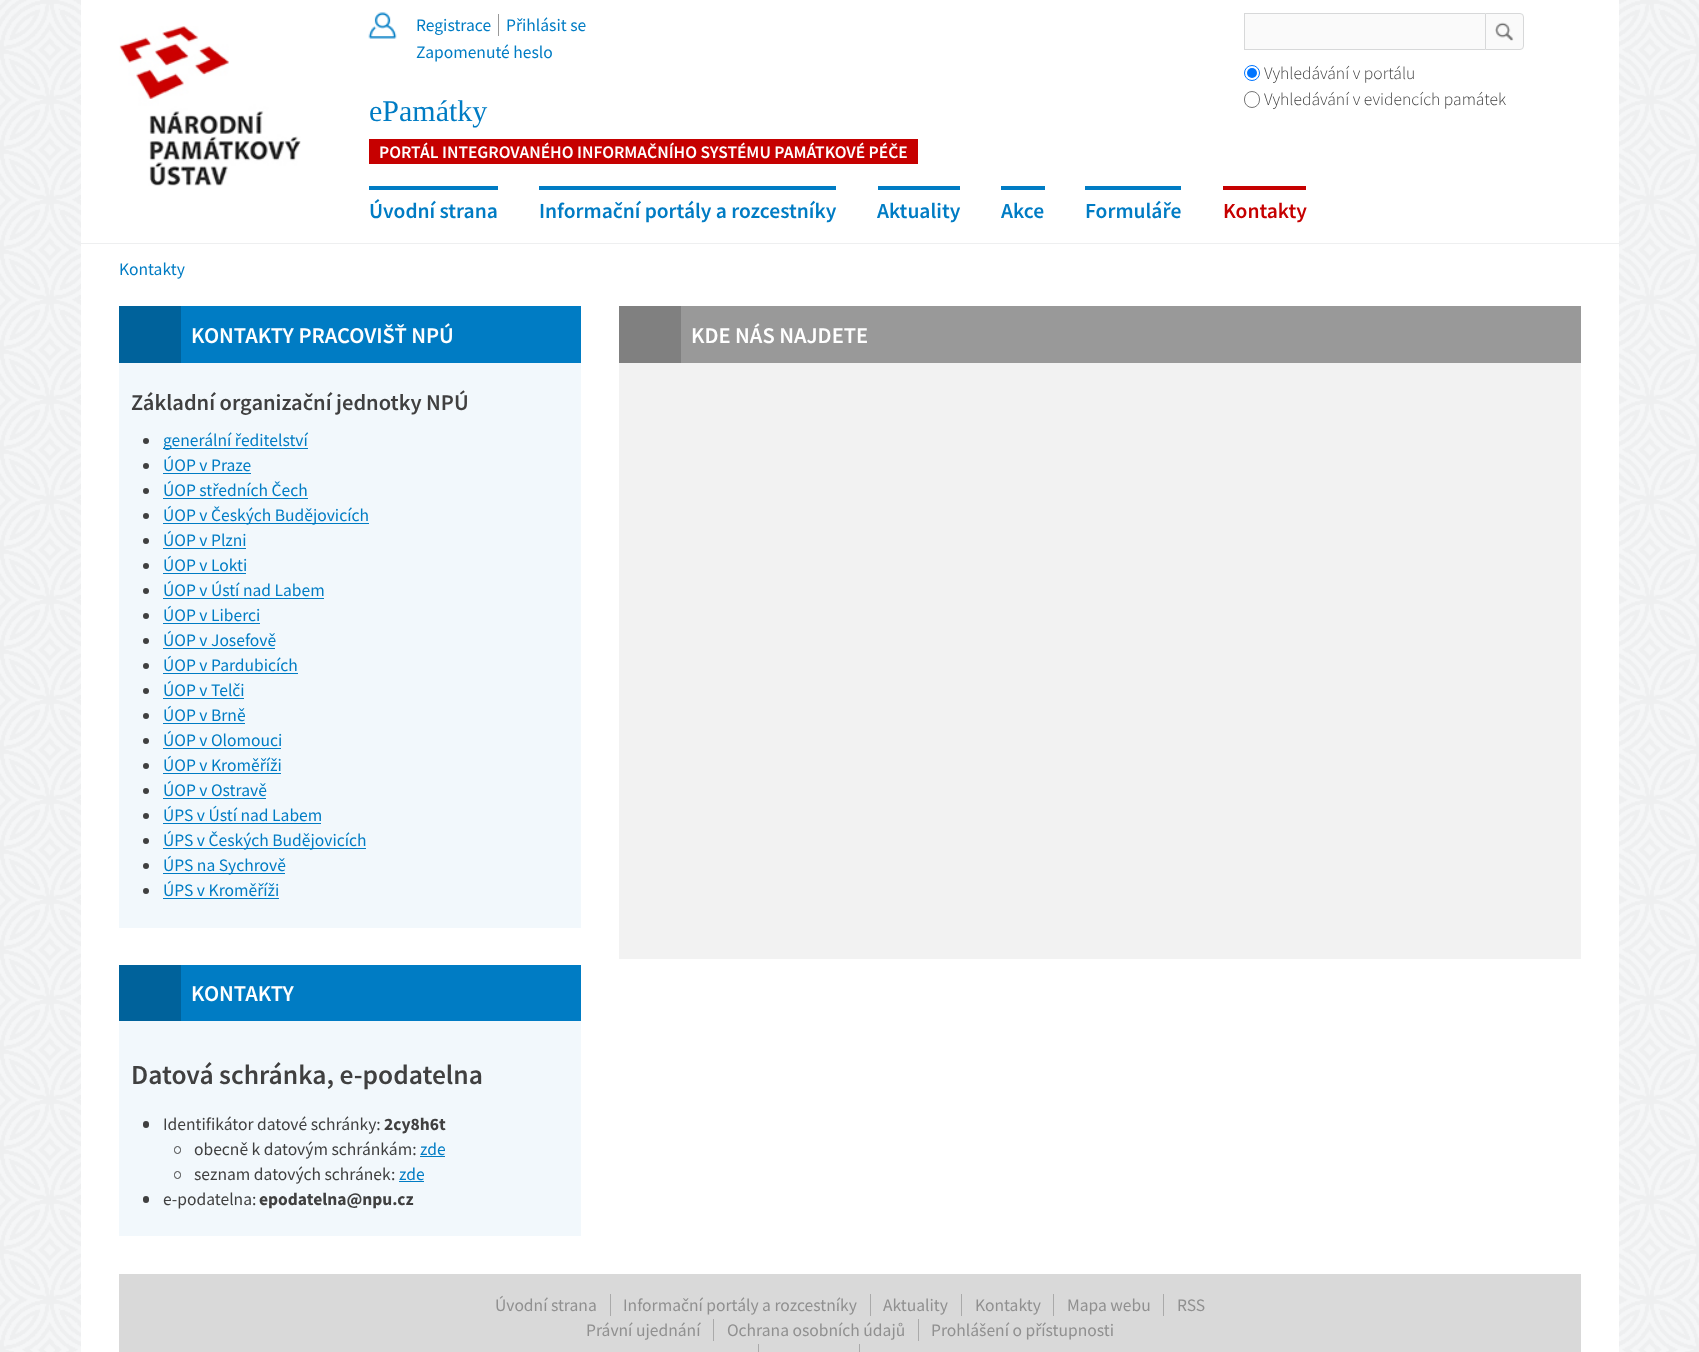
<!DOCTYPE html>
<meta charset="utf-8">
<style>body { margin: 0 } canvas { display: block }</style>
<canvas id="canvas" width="1699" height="1352"></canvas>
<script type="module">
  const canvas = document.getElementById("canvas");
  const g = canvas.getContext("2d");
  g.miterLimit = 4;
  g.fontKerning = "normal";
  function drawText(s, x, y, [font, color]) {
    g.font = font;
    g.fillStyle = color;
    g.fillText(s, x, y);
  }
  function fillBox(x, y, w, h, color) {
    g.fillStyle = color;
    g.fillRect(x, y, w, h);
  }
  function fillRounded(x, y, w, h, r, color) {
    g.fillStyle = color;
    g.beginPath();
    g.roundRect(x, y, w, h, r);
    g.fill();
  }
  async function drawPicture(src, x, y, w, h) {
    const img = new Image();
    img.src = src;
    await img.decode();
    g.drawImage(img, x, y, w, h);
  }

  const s1 = ["17.5px Source Sans Pro", "#007CC4"];
  const s2 = ["300 17.5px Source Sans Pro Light", "#404040"];
  const s3 = ["30px Liberation Serif", "#007CC4"];
  const s4 = ["600 17.5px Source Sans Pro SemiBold", "#FFFFFF"];
  const s5 = ["600 21.5px Source Sans Pro SemiBold", "#007CC4"];
  const s6 = ["600 21.5px Source Sans Pro SemiBold", "#C60000"];
  const s7 = ["600 22.5px Source Sans Pro SemiBold", "#FFFFFF"];
  const s8 = ["600 22.5px Source Sans Pro SemiBold", "#404040"];
  const s9 = ["600 27.5px Source Sans Pro SemiBold", "#404040"];
  const s10 = ["17.5px Source Sans Pro", "#404040"];
  const s11 = ["bold 17.5px Source Sans Pro", "#404040"];
  const s12 = ["17.5px Source Sans Pro", "#909090"];

  fillBox(0, 0, 1699, 1352, "#FFFFFF");
  await drawPicture("pic1.png", 0, 0, 1699, 1352);
  fillBox(81, 0, 1538, 243, "#FFFFFF");
  fillBox(81, 243, 1538, 1, "#EEEFF0");
  await drawPicture("pic2.png", 119, 26, 182, 160);
  await drawPicture("pic3.png", 368, 12, 29, 27);
  drawText("Registrace", 416, 31, s1);
  fillBox(498, 14, 1, 22, "#999999");
  drawText("Přihlásit se", 506, 31, s1);
  drawText("Zapomenuté heslo", 416, 58, s1);
  fillBox(1245, 14, 240, 35, "#FAFAFA");
  fillBox(1244, 13, 241, 1, "#D7D8D9");
  fillBox(1244, 49, 241, 1, "#D7D8D9");
  fillBox(1244, 13, 1, 37, "#D7D8D9");
  g.fillStyle = "#FAFAFA";
  g.beginPath();
  g.roundRect(1485.5, 13.5, 38, 36, [0, 3.5, 3.5, 0]);
  g.fill();
  g.strokeStyle = "#D7D8D9";
  g.stroke();
  await drawPicture("pic4.png", 1495, 22, 19, 19);
  g.beginPath();
  g.arc(1252, 73, 7.5, 0, Math.PI * 2);
  g.strokeStyle = "#0075FF";
  g.stroke();
  g.fillStyle = "#0075FF";
  g.beginPath();
  g.arc(1252, 73, 5, 0, Math.PI * 2);
  g.fill();
  drawText("Vyhledávání v portálu", 1264, 79, s2);
  g.beginPath();
  g.roundRect(1244.5, 91.5, 15, 16, 7.5);
  g.strokeStyle = "#767676";
  g.stroke();
  drawText("Vyhledávání v evidencích památek", 1264, 105, s2);
  drawText("ePamátky", 369, 121, s3);
  fillBox(369, 139, 549, 25, "#C60000");
  drawText("PORTÁL INTEGROVANÉHO INFORMAČNÍHO SYSTÉMU PAMÁTKOVÉ PÉČE", 379, 158, s4);
  fillBox(369, 186, 129, 4, "#007CC4");
  drawText("Úvodní strana", 369, 218, s5);
  fillBox(539, 186, 297, 4, "#007CC4");
  drawText("Informační portály a rozcestníky", 539, 218, s5);
  fillBox(878, 186, 82, 4, "#007CC4");
  drawText("Aktuality", 877, 218, s5);
  fillBox(1001, 186, 44, 4, "#007CC4");
  drawText("Akce", 1001, 218, s5);
  fillBox(1085, 186, 96, 4, "#007CC4");
  drawText("Formuláře", 1085, 218, s5);
  fillBox(1223, 186, 83, 4, "#C60000");
  drawText("Kontakty", 1223, 218, s6);
  fillBox(81, 244, 1538, 1108, "#FFFFFF");
  drawText("Kontakty", 119, 275, s1);
  fillBox(181, 306, 400, 57, "#007CC4");
  fillBox(119, 306, 62, 57, "#00629B");
  drawText("KONTAKTY PRACOVIŠŤ NPÚ", 191, 343, s7);
  fillBox(119, 363, 462, 565, "#F2F8FC");
  drawText("Základní organizační jednotky NPÚ", 131, 410, s8);
  g.beginPath();
  g.arc(146, 441, 3, 0, Math.PI * 2);
  g.fill();
  fillBox(163, 448, 145, 1, "#007CC4");
  drawText("generální ředitelství", 163, 446, s1);
  g.fillStyle = "#404040";
  g.beginPath();
  g.arc(146, 466, 3, 0, Math.PI * 2);
  g.fill();
  drawText("ÚOP v Praze", 163, 471, s1);
  fillBox(163, 473, 88, 1, "#007CC4");
  g.fillStyle = "#404040";
  g.beginPath();
  g.arc(146, 491, 3, 0, Math.PI * 2);
  g.fill();
  drawText("ÚOP středních Čech", 163, 496, s1);
  fillBox(163, 498, 145, 1, "#007CC4");
  g.fillStyle = "#404040";
  g.beginPath();
  g.arc(146, 516, 3, 0, Math.PI * 2);
  g.fill();
  fillBox(163, 523, 206, 1, "#007CC4");
  drawText("ÚOP v Českých Budějovicích", 163, 521, s1);
  g.fillStyle = "#404040";
  g.beginPath();
  g.arc(146, 541, 3, 0, Math.PI * 2);
  g.fill();
  drawText("ÚOP v Plzni", 163, 546, s1);
  fillBox(163, 548, 83, 1, "#007CC4");
  g.fillStyle = "#404040";
  g.beginPath();
  g.arc(146, 566, 3, 0, Math.PI * 2);
  g.fill();
  drawText("ÚOP v Lokti", 163, 571, s1);
  fillBox(163, 573, 83, 1, "#007CC4");
  g.fillStyle = "#404040";
  g.beginPath();
  g.arc(146, 591, 3, 0, Math.PI * 2);
  g.fill();
  drawText("ÚOP v Ústí nad Labem", 163, 596, s1);
  fillBox(163, 598, 161, 1, "#007CC4");
  g.fillStyle = "#404040";
  g.beginPath();
  g.arc(146, 616, 3, 0, Math.PI * 2);
  g.fill();
  drawText("ÚOP v Liberci", 163, 621, s1);
  fillBox(163, 623, 97, 1, "#007CC4");
  g.fillStyle = "#404040";
  g.beginPath();
  g.arc(146, 641, 3, 0, Math.PI * 2);
  g.fill();
  drawText("ÚOP v Josefově", 163, 646, s1);
  fillBox(163, 648, 112, 1, "#007CC4");
  g.fillStyle = "#404040";
  g.beginPath();
  g.arc(146, 666, 3, 0, Math.PI * 2);
  g.fill();
  drawText("ÚOP v Pardubicích", 163, 671, s1);
  fillBox(163, 673, 135, 1, "#007CC4");
  g.fillStyle = "#404040";
  g.beginPath();
  g.arc(146, 691, 3, 0, Math.PI * 2);
  g.fill();
  drawText("ÚOP v Telči", 163, 696, s1);
  fillBox(163, 698, 81, 1, "#007CC4");
  g.fillStyle = "#404040";
  g.beginPath();
  g.arc(146, 716, 3, 0, Math.PI * 2);
  g.fill();
  drawText("ÚOP v Brně", 163, 721, s1);
  fillBox(163, 723, 82, 1, "#007CC4");
  g.fillStyle = "#404040";
  g.beginPath();
  g.arc(146, 741, 3, 0, Math.PI * 2);
  g.fill();
  drawText("ÚOP v Olomouci", 163, 746, s1);
  fillBox(163, 748, 118, 1, "#007CC4");
  g.fillStyle = "#404040";
  g.beginPath();
  g.arc(146, 766, 3, 0, Math.PI * 2);
  g.fill();
  drawText("ÚOP v Kroměříži", 163, 771, s1);
  fillBox(163, 773, 118, 1, "#007CC4");
  g.fillStyle = "#404040";
  g.beginPath();
  g.arc(146, 791, 3, 0, Math.PI * 2);
  g.fill();
  drawText("ÚOP v Ostravě", 163, 796, s1);
  fillBox(163, 798, 103, 1, "#007CC4");
  g.fillStyle = "#404040";
  g.beginPath();
  g.arc(146, 816, 3, 0, Math.PI * 2);
  g.fill();
  drawText("ÚPS v Ústí nad Labem", 163, 821, s1);
  fillBox(163, 823, 158, 1, "#007CC4");
  g.fillStyle = "#404040";
  g.beginPath();
  g.arc(146, 841, 3, 0, Math.PI * 2);
  g.fill();
  fillBox(163, 848, 203, 1, "#007CC4");
  drawText("ÚPS v Českých Budějovicích", 163, 846, s1);
  g.fillStyle = "#404040";
  g.beginPath();
  g.arc(146, 866, 3, 0, Math.PI * 2);
  g.fill();
  fillBox(163, 873, 122, 1, "#007CC4");
  drawText("ÚPS na Sychrově", 163, 871, s1);
  g.fillStyle = "#404040";
  g.beginPath();
  g.arc(146, 891, 3, 0, Math.PI * 2);
  g.fill();
  drawText("ÚPS v Kroměříži", 163, 896, s1);
  fillBox(163, 898, 116, 1, "#007CC4");
  fillBox(181, 965, 400, 56, "#007CC4");
  fillBox(119, 965, 62, 56, "#00629B");
  drawText("KONTAKTY", 191, 1001, s7);
  fillBox(119, 1021, 462, 215, "#F2F8FC");
  drawText("Datová schránka, e-podatelna", 131, 1084, s9);
  fillRounded(143, 1121, 6, 7, 3, "#404040");
  drawText("Identifikátor datové schránky:", 163, 1130, s10);
  drawText("2cy8h6t", 384, 1130, s11);
  g.beginPath();
  g.roundRect(174.5, 1146.5, 6, 7, 3);
  g.strokeStyle = "#404040";
  g.stroke();
  drawText("obecně k datovým schránkám:", 194, 1155, s10);
  drawText("zde", 420, 1155, s1);
  fillBox(420, 1156, 25, 1, "#007CC4");
  g.beginPath();
  g.roundRect(174.5, 1171.5, 6, 7, 3);
  g.stroke();
  drawText("seznam datových schránek:", 194, 1180, s10);
  drawText("zde", 399, 1180, s1);
  fillBox(399, 1181, 25, 1, "#007CC4");
  fillRounded(143, 1196, 6, 7, 3, "#404040");
  drawText("e-podatelna:", 163, 1205, s10);
  drawText("epodatelna@npu.cz", 259, 1205, s11);
  fillBox(681, 306, 900, 57, "#999999");
  fillBox(619, 306, 62, 57, "#808080");
  drawText("KDE NÁS NAJDETE", 691, 343, s7);
  fillBox(619, 363, 962, 596, "#F2F2F2");
  fillBox(119, 1274, 1462, 78, "#D9D9D9");
  drawText("Úvodní strana", 495, 1311, s12);
  fillBox(610, 1294, 1, 22, "#AAAAAA");
  drawText("Informační portály a rozcestníky", 623, 1311, s12);
  fillBox(870, 1294, 1, 22, "#AAAAAA");
  drawText("Aktuality", 883, 1311, s12);
  fillBox(961, 1294, 1, 22, "#AAAAAA");
  drawText("Kontakty", 975, 1311, s12);
  fillBox(1053, 1294, 1, 22, "#AAAAAA");
  drawText("Mapa webu", 1067, 1311, s12);
  fillBox(1163, 1294, 1, 22, "#AAAAAA");
  drawText("RSS", 1177, 1311, s12);
  drawText("Právní ujednání", 586, 1336, s12);
  fillBox(713, 1319, 1, 22, "#AAAAAA");
  drawText("Ochrana osobních údajů", 727, 1336, s12);
  fillBox(918, 1319, 1, 22, "#AAAAAA");
  drawText("Prohlášení o přístupnosti", 931, 1336, s12);
  fillBox(758, 1344, 1, 8, "#AAAAAA");
  fillBox(859, 1344, 1, 8, "#AAAAAA");
</script>
